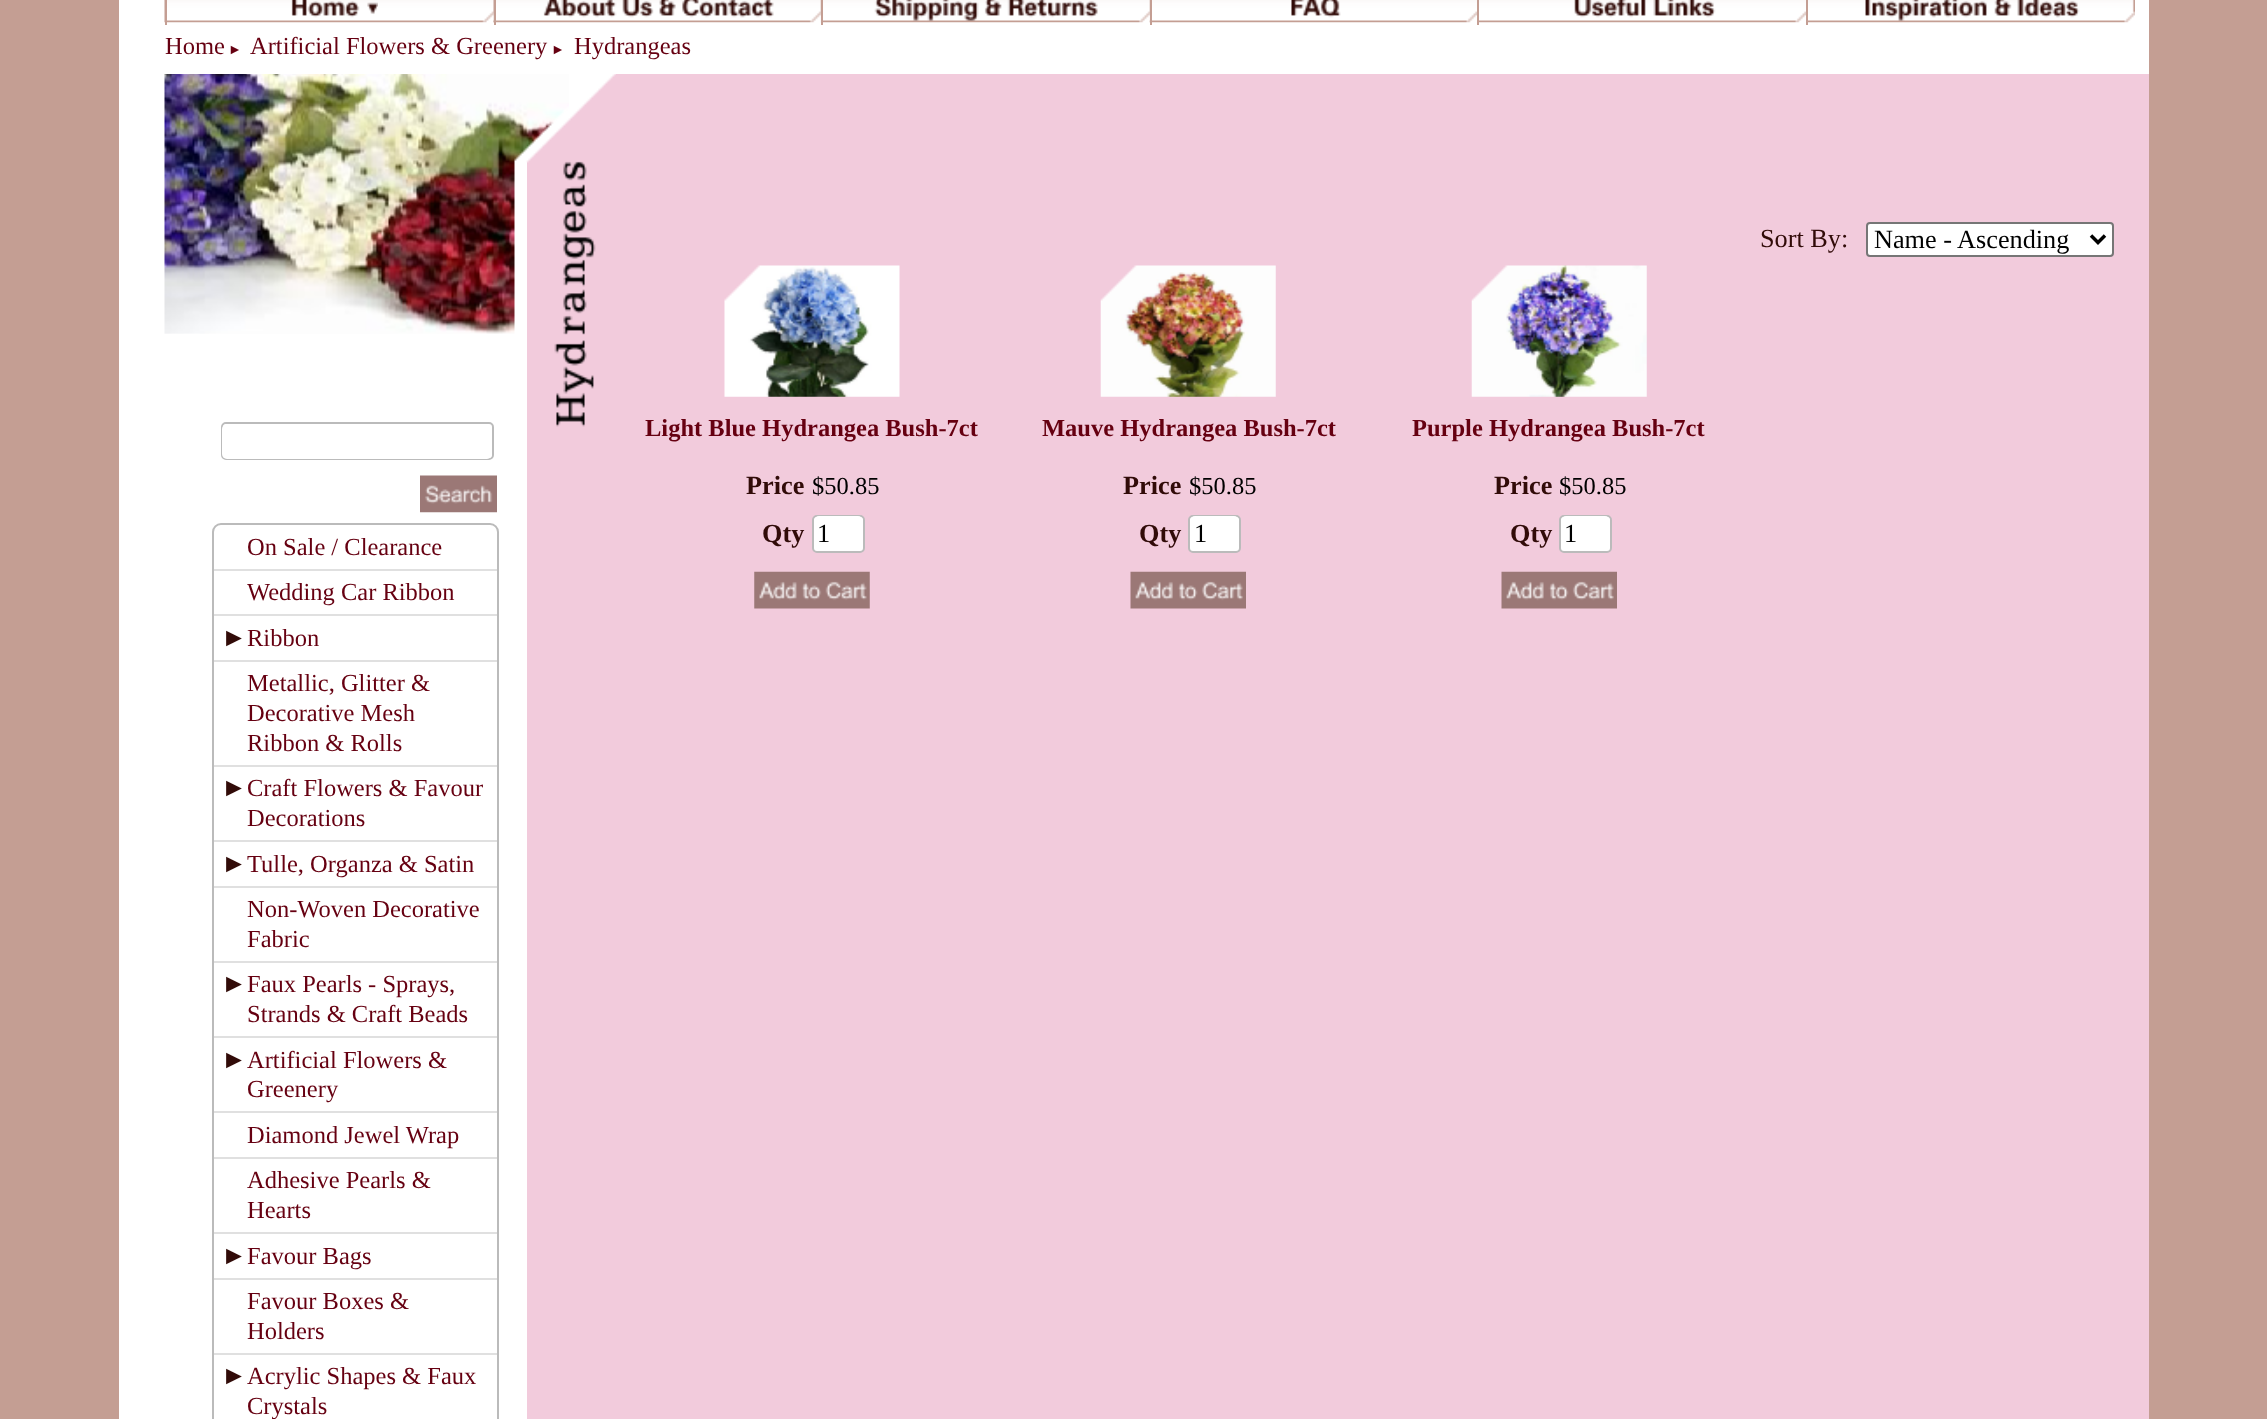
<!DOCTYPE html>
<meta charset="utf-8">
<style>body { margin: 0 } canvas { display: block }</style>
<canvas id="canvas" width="2267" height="1419"></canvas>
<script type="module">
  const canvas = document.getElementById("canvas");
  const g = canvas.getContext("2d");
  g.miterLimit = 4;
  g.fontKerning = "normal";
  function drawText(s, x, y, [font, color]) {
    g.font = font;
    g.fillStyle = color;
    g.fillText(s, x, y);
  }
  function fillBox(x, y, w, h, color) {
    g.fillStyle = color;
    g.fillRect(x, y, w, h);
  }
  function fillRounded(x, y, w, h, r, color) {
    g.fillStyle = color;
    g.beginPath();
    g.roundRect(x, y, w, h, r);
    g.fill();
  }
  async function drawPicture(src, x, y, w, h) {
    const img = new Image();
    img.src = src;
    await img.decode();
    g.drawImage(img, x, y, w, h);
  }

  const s1 = ["24.5px Liberation Serif", "#660011"];
  const s2 = ["14px Liberation Sans", "#660011"];
  const s3 = ["26.25px Liberation Serif", "#310B08"];
  const s4 = ["26.25px Liberation Serif", "#000000"];
  const s5 = ["bold 24.5px Liberation Serif", "#660011"];
  const s6 = ["bold 26.25px Liberation Serif", "#310B08"];
  const s7 = ["24.5px Liberation Serif", "#000000"];
  const s8 = ["26.25px Liberation Sans", "#310B08"];

  fillBox(0, 0, 2267, 1419, "#C49E93");
  fillBox(119, 0, 2030, 74, "#FFFFFF");
  await drawPicture("pic1.png", 164, 0, 1970, 23);
  await drawPicture("pic2.png", 167, 11, 327, 12);
  fillBox(165, 0, 2, 25, "#C49E93");
  await drawPicture("pic3.png", 291, 0, 87, 18);
  await drawPicture("pic4.png", 493, 11, 328, 12);
  fillBox(494, 0, 2, 25, "#C49E93");
  await drawPicture("pic5.png", 543, 0, 231, 18);
  await drawPicture("pic6.png", 823, 11, 327, 12);
  fillBox(821, 0, 2, 25, "#C49E93");
  await drawPicture("pic7.png", 874, 0, 224, 21);
  await drawPicture("pic8.png", 1149, 11, 328, 12);
  fillBox(1150, 0, 2, 25, "#C49E93");
  await drawPicture("pic9.png", 1291, 0, 50, 18);
  await drawPicture("pic10.png", 1479, 11, 327, 12);
  fillBox(1477, 0, 2, 25, "#C49E93");
  await drawPicture("pic11.png", 1574, 0, 142, 18);
  await drawPicture("pic12.png", 1808, 0, 327, 23);
  fillBox(1806, 0, 2, 25, "#C49E93");
  await drawPicture("pic13.png", 1865, 0, 215, 21);
  drawText("Home", 165, 54, s1);
  drawText("►", 228, 54, s2);
  drawText("Artificial Flowers & Greenery", 250, 54, s1);
  drawText("►", 551, 54, s2);
  drawText("Hydrangeas", 574, 54, s1);
  fillBox(119, 74, 408, 1345, "#FFFFFF");
  fillBox(527, 161, 89, 1258, "#F2CBDC");
  await drawPicture("pic15.png", 526, 74, 90, 353);
  await drawPicture("pic14.png", 164, 74, 405, 260);
  fillBox(616, 74, 1533, 1345, "#F2CBDC");
  drawText("Sort By:", 1760, 247, s3);
  g.fillStyle = "#FFFFFF";
  g.beginPath();
  g.roundRect(1867, 223, 246, 33, 3);
  g.fill();
  g.strokeStyle = "#767676";
  g.lineWidth = 2;
  g.stroke();
  g.beginPath();
  g.moveTo(2091, 235.5);
  g.lineTo(2098, 242.5);
  g.lineTo(2105, 235.5);
  g.strokeStyle = "#000000";
  g.lineWidth = 3.5;
  g.stroke();
  drawText("Name - Ascending", 1874, 248, s4);
  await drawPicture("pic16.png", 724, 265, 176, 132);
  drawText("Light Blue Hydrangea Bush-7ct", 645, 436, s5);
  drawText("Price", 746, 494, s6);
  drawText("$50.85", 812, 494, s7);
  drawText("Qty", 762, 542, s6);
  g.fillStyle = "#FFFFFF";
  g.beginPath();
  g.roundRect(813, 516, 51, 36, 4);
  g.fill();
  g.strokeStyle = "#BBBBBB";
  g.lineWidth = 2;
  g.stroke();
  fillRounded(814, 516, 49, 35, 5, "#FFFFFF");
  drawText("1", 817, 542, s4);
  await drawPicture("pic17.png", 754, 571, 116, 38);
  await drawPicture("pic18.png", 1100, 265, 176, 132);
  drawText("Mauve Hydrangea Bush-7ct", 1042, 436, s5);
  drawText("Price", 1123, 494, s6);
  drawText("$50.85", 1189, 494, s7);
  drawText("Qty", 1139, 542, s6);
  g.fillStyle = "#FFFFFF";
  g.beginPath();
  g.roundRect(1189, 516, 51, 36, 4);
  g.fill();
  g.stroke();
  fillRounded(1190, 516, 49, 35, 5, "#FFFFFF");
  drawText("1", 1194, 542, s4);
  await drawPicture("pic19.png", 1130, 571, 116, 38);
  await drawPicture("pic20.png", 1471, 265, 176, 132);
  drawText("Purple Hydrangea Bush-7ct", 1412, 436, s5);
  drawText("Price", 1494, 494, s6);
  drawText("$50.85", 1559, 494, s7);
  drawText("Qty", 1510, 542, s6);
  g.fillStyle = "#FFFFFF";
  g.beginPath();
  g.roundRect(1560, 516, 51, 36, 4);
  g.fill();
  g.stroke();
  fillRounded(1561, 516, 49, 35, 5, "#FFFFFF");
  drawText("1", 1564, 542, s4);
  await drawPicture("pic21.png", 1501, 571, 116, 38);
  g.beginPath();
  g.roundRect(222, 423, 271, 36, 4);
  g.stroke();
  fillRounded(222, 424, 270, 35, 5, "#FFFFFF");
  await drawPicture("pic22.png", 420, 475, 77, 38);
  g.beginPath();
  g.roundRect(213, 524, 285, 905, 8);
  g.stroke();
  drawText("On Sale / Clearance", 247, 555, s1);
  fillBox(214, 569, 283, 2, "#E0E0E0");
  drawText("Wedding Car Ribbon", 247, 600, s1);
  fillBox(214, 614, 283, 2, "#E0E0E0");
  drawText("►", 221, 646, s8);
  drawText("Ribbon", 247, 646, s1);
  fillBox(214, 660, 283, 2, "#E0E0E0");
  drawText("Metallic, Glitter &", 247, 691, s1);
  drawText("Decorative Mesh", 247, 721, s1);
  drawText("Ribbon & Rolls", 247, 751, s1);
  fillBox(214, 765, 283, 2, "#E0E0E0");
  drawText("►", 221, 796, s8);
  drawText("Craft Flowers & Favour", 247, 796, s1);
  drawText("Decorations", 247, 826, s1);
  fillBox(214, 840, 283, 2, "#E0E0E0");
  drawText("►", 221, 872, s8);
  drawText("Tulle, Organza & Satin", 247, 872, s1);
  fillBox(214, 886, 283, 2, "#E0E0E0");
  drawText("Non-Woven Decorative", 247, 917, s1);
  drawText("Fabric", 247, 947, s1);
  fillBox(214, 961, 283, 2, "#E0E0E0");
  drawText("►", 221, 992, s8);
  drawText("Faux Pearls - Sprays,", 247, 992, s1);
  drawText("Strands & Craft Beads", 247, 1022, s1);
  fillBox(214, 1036, 283, 2, "#E0E0E0");
  drawText("►", 221, 1068, s8);
  drawText("Artificial Flowers &", 247, 1068, s1);
  drawText("Greenery", 247, 1097, s1);
  fillBox(214, 1111, 283, 2, "#E0E0E0");
  drawText("Diamond Jewel Wrap", 247, 1143, s1);
  fillBox(214, 1157, 283, 2, "#E0E0E0");
  drawText("Adhesive Pearls &", 247, 1188, s1);
  drawText("Hearts", 247, 1218, s1);
  fillBox(214, 1232, 283, 2, "#E0E0E0");
  drawText("►", 221, 1264, s8);
  drawText("Favour Bags", 247, 1264, s1);
  fillBox(214, 1278, 283, 2, "#E0E0E0");
  drawText("Favour Boxes &", 247, 1309, s1);
  drawText("Holders", 247, 1339, s1);
  fillBox(214, 1353, 283, 2, "#E0E0E0");
  drawText("►", 221, 1384, s8);
  drawText("Acrylic Shapes & Faux", 247, 1384, s1);
  drawText("Crystals", 247, 1414, s1);
</script>
